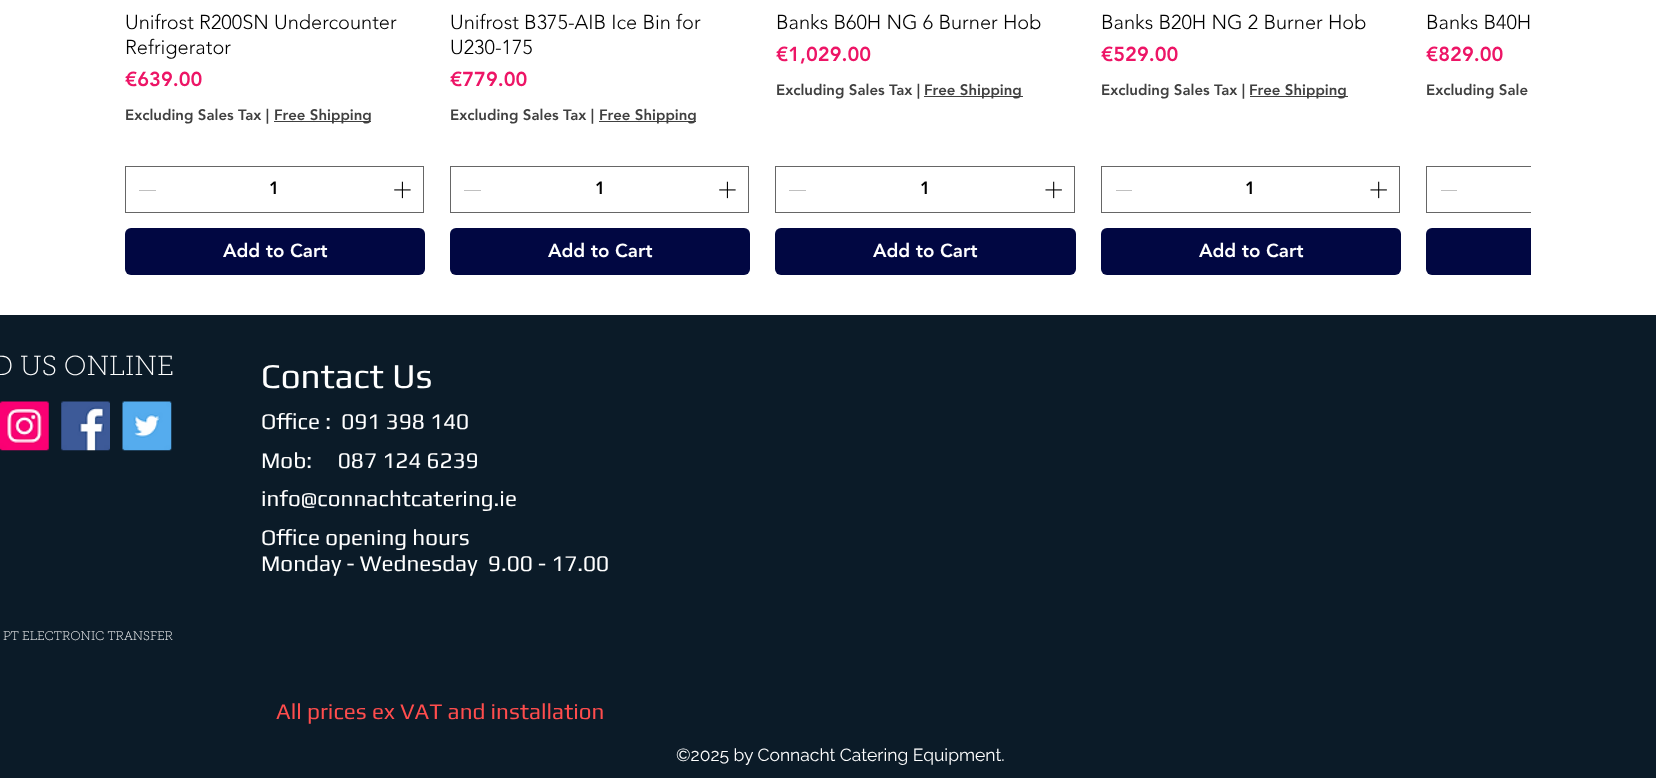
<!DOCTYPE html>
<meta charset="utf-8">
<style>body { margin: 0 } canvas { display: block }</style>
<canvas id="canvas" width="1656" height="778"></canvas>
<script type="module">
  const canvas = document.getElementById("canvas");
  const g = canvas.getContext("2d");
  g.miterLimit = 4;
  g.fontKerning = "normal";
  function drawText(s, x, y, [font, color]) {
    g.font = font;
    g.fillStyle = color;
    g.fillText(s, x, y);
  }
  function fillBox(x, y, w, h, color) {
    g.fillStyle = color;
    g.fillRect(x, y, w, h);
  }
  function fillRounded(x, y, w, h, r, color) {
    g.fillStyle = color;
    g.beginPath();
    g.roundRect(x, y, w, h, r);
    g.fill();
  }
  async function drawPicture(src, x, y, w, h) {
    const img = new Image();
    img.src = src;
    await img.decode();
    g.drawImage(img, x, y, w, h);
  }

  const s1 = ["300 20px 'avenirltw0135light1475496'", "#000000"];
  const s2 = ["900 20px 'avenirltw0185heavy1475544'", "#ED1566"];
  const s3 = ["900 15px 'avenirltw0185heavy1475544'", "#404040"];
  const s4 = ["900 17.5px 'avenirltw0185heavy1475544'", "#000000"];
  const s5 = ["900 18.75px 'avenirltw0185heavy1475544'", "#FFFFFF"];
  const s6 = ["100 27.5px 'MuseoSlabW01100'", "#FFFFFF"];
  const s7 = ["35px Play", "#FFFFFF"];
  const s8 = ["22.5px Play", "#FFFFFF"];
  const s9 = ["100 12.5px 'MuseoSlabW01100'", "#FFFFFF"];
  const s10 = ["22.5px Play", "#FF4D4D"];
  const s11 = ["17.5px Raleway", "#FFFFFF"];

  fillBox(0, 0, 1656, 778, "#FFFFFF");
  drawText("Unifrost R200SN Undercounter", 125, 29, s1);
  drawText("Refrigerator", 125, 54, s1);
  drawText("€639.00", 125, 86, s2);
  drawText("Excluding Sales Tax |", 125, 120, s3);
  fillBox(274, 121, 97, 1, "#404040");
  drawText("Free Shipping", 274, 120, s3);
  g.strokeStyle = "#666666";
  g.strokeRect(125.5, 166.5, 298, 46);
  fillBox(139, 190, 17, 1, "#C0C0C0");
  drawText("1", 269, 194, s4);
  await drawPicture("pic1.png", 394, 181, 17, 18);
  fillRounded(125, 228, 300, 47, 6, "#010742");
  drawText("Add to Cart", 223, 257, s5);
  drawText("Unifrost B375-AIB Ice Bin for", 450, 29, s1);
  drawText("U230-175", 450, 54, s1);
  drawText("€779.00", 450, 86, s2);
  drawText("Excluding Sales Tax |", 450, 120, s3);
  fillBox(599, 121, 97, 1, "#404040");
  drawText("Free Shipping", 599, 120, s3);
  g.strokeRect(450.5, 166.5, 298, 46);
  fillBox(464, 190, 17, 1, "#C0C0C0");
  drawText("1", 595, 194, s4);
  await drawPicture("pic1.png", 719, 181, 17, 18);
  fillRounded(450, 228, 300, 47, 6, "#010742");
  drawText("Add to Cart", 548, 257, s5);
  drawText("Banks B60H NG 6 Burner Hob", 776, 29, s1);
  drawText("€1,029.00", 776, 61, s2);
  drawText("Excluding Sales Tax |", 776, 95, s3);
  fillBox(924, 96, 99, 1, "#404040");
  drawText("Free Shipping", 924, 95, s3);
  g.strokeRect(775.5, 166.5, 299, 46);
  fillBox(789, 190, 17, 1, "#C0C0C0");
  drawText("1", 920, 194, s4);
  await drawPicture("pic2.png", 1045, 181, 17, 18);
  fillRounded(775, 228, 301, 47, 6, "#010742");
  drawText("Add to Cart", 873, 257, s5);
  drawText("Banks B20H NG 2 Burner Hob", 1101, 29, s1);
  drawText("€529.00", 1101, 61, s2);
  drawText("Excluding Sales Tax |", 1101, 95, s3);
  fillBox(1250, 96, 98, 1, "#404040");
  drawText("Free Shipping", 1249, 95, s3);
  g.strokeRect(1101.5, 166.5, 298, 46);
  fillBox(1116, 190, 16, 1, "#C0C0C0");
  drawText("1", 1245, 194, s4);
  await drawPicture("pic2.png", 1370, 181, 17, 18);
  fillRounded(1101, 228, 300, 47, 6, "#010742");
  drawText("Add to Cart", 1199, 257, s5);
  drawText("Banks B40H", 1426, 29, s1);
  drawText("€829.00", 1426, 61, s2);
  drawText("Excluding Sale", 1426, 95, s3);
  g.save();
  g.beginPath();
  g.rect(125, 0, 1406, 275);
  g.clip();
  g.strokeRect(1426.5, 166.5, 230, 46);
  g.restore();
  fillBox(1441, 190, 16, 1, "#C0C0C0");
  g.fillStyle = "#010742";
  g.beginPath();
  g.roundRect(1426, 228, 105, 47, [6, 0, 0, 6]);
  g.fill();
  fillBox(0, 315, 1656, 463, "#0B1B28");
  drawText("D US ONLINE", -8, 375, s6);
  drawText("Contact Us", 261, 388, s7);
  drawText("Office :  091 398 140", 261, 429, s8);
  drawText("Mob:     087 124 6239", 261, 468, s8);
  drawText("info@connachtcatering.ie", 261, 506, s8);
  drawText("Office opening hours", 261, 545, s8);
  drawText("Monday - Wednesday  9.00 - 17.00", 261, 571, s8);
  await drawPicture("pic3.png", 0, 401, 49, 50);
  await drawPicture("pic4.png", 61, 401, 49, 50);
  await drawPicture("pic5.png", 122, 401, 50, 50);
  drawText("PT ELECTRONIC TRANSFER", 3, 640, s9);
  drawText("All prices ex VAT and installation", 276, 719, s10);
  drawText("©2025 by Connacht Catering Equipment.", 676, 761, s11);
</script>
